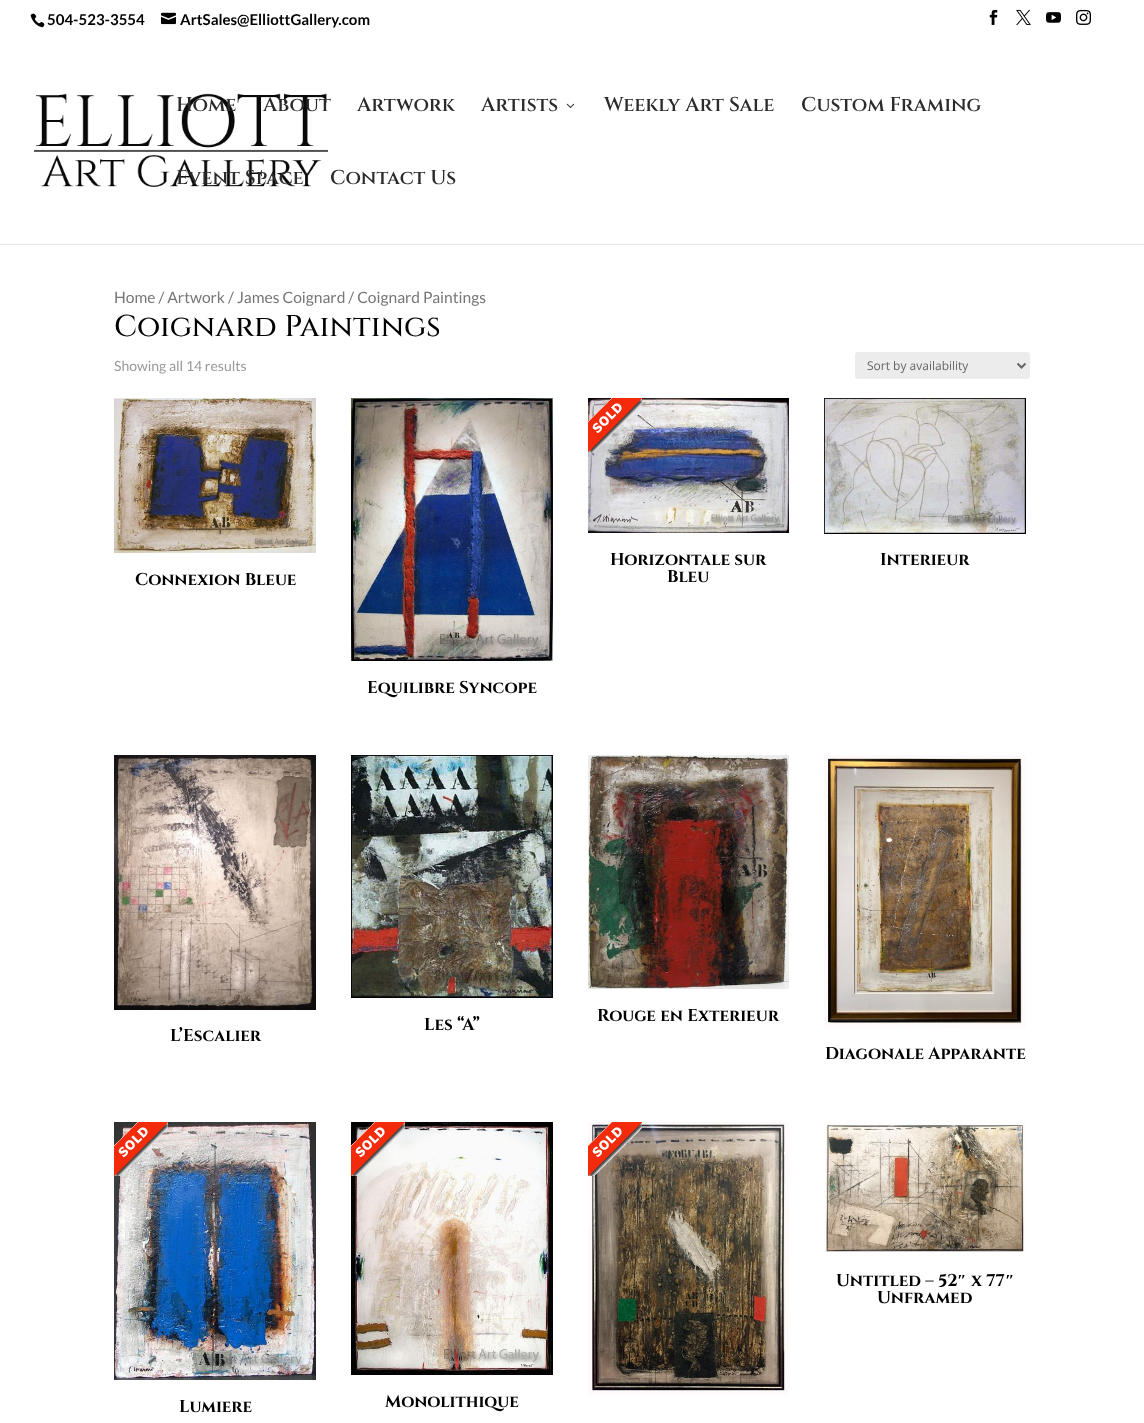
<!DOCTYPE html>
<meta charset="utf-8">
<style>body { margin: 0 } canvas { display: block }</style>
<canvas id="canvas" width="1144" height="1423"></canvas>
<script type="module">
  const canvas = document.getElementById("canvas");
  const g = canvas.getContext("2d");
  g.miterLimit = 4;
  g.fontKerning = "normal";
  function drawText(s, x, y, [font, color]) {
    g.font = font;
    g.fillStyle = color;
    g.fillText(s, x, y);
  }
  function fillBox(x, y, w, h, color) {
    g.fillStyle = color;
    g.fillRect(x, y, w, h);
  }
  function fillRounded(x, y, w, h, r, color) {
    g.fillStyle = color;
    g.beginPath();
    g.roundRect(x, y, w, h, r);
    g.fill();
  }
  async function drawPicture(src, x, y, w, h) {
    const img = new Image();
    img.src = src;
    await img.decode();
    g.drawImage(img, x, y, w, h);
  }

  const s1 = ["bold 15px Lato", "#000000"];
  const s2 = ["600 20px Cinzel", "#2B2B2B"];
  const s3 = ["15.6px Lato", "#767676"];
  const s4 = ["500 30px Cinzel", "#000000"];
  const s5 = ["14px Lato", "#999999"];
  const s6 = ["12px Open Sans", "#666666"];
  const s7 = ["bold 17px Cinzel", "#000000"];
  const s8 = ["bold 17px Liberation Serif", "#000000"];

  fillBox(0, 0, 1144, 1423, "#FFFFFF");
  await drawPicture("pic1.png", 30, 13, 15, 15);
  drawText("504-523-3554", 47, 25, s1);
  await drawPicture("pic2.png", 161, 12, 15, 13);
  drawText("ArtSales@ElliottGallery.com", 180, 25, s1);
  await drawPicture("pic3.png", 989, 9, 9, 16);
  await drawPicture("pic4.png", 1016, 9, 15, 16);
  await drawPicture("pic5.png", 1046, 12, 15, 11);
  await drawPicture("pic6.png", 1076, 9, 15, 16);
  fillBox(0, 244, 1144, 1, "#E6E6E6");
  await drawPicture("pic7.png", 34, 93, 294, 94);
  drawText("Home", 176, 111, s2);
  drawText("About", 263, 111, s2);
  drawText("Artwork", 357, 111, s2);
  drawText("Artists", 481, 111, s2);
  await drawPicture("pic8.png", 566, 103, 9, 5);
  drawText("Weekly Art Sale", 604, 111, s2);
  drawText("Custom Framing", 801, 111, s2);
  drawText("Event Space", 176, 184, s2);
  drawText("Contact Us", 330, 184, s2);
  drawText("Home / Artwork / James Coignard / Coignard Paintings", 114, 303, s3);
  drawText("Coignard Paintings", 114, 336, s4);
  drawText("Showing all 14 results", 114, 371, s5);
  fillRounded(855, 352, 175, 27, 3, "#ECECEC");
  g.beginPath();
  g.moveTo(1017.5, 363.5);
  g.lineTo(1021.5, 367.5);
  g.lineTo(1025.5, 363.5);
  g.strokeStyle = "#666666";
  g.lineWidth = 2;
  g.stroke();
  drawText("Sort by availability", 867, 370, s6);
  await drawPicture("pic10.png", 588, 398, 201, 135);
  await drawPicture("pic9.png", 588, 398, 54, 54);
  drawText("Horizontale sur", 610, 565, s7);
  drawText("Bleu", 667, 582, s7);
  await drawPicture("pic11.png", 824, 398, 202, 136);
  drawText("Interieur", 880, 565, s7);
  await drawPicture("pic12.png", 114, 398, 202, 155);
  drawText("Connexion Bleue", 135, 585, s7);
  await drawPicture("pic13.png", 351, 398, 202, 263);
  drawText("Equilibre Syncope", 367, 693, s7);
  await drawPicture("pic14.png", 351, 755, 202, 243);
  drawText("Les “A”", 424, 1030, s7);
  await drawPicture("pic15.png", 588, 755, 201, 234);
  drawText("Rouge en Exterieur", 597, 1021, s7);
  await drawPicture("pic16.png", 114, 755, 202, 255);
  drawText("L’Escalier", 170, 1041, s7);
  await drawPicture("pic17.png", 824, 755, 202, 273);
  drawText("Diagonale Apparante", 825, 1059, s7);
  await drawPicture("pic18.png", 588, 1122, 201, 273);
  await drawPicture("pic19.png", 588, 1122, 54, 54);
  await drawPicture("pic20.png", 824, 1122, 202, 130);
  drawText("Untitled – 52", 836, 1286, s7);
  drawText("″", 957, 1286, s8);
  drawText("x 77", 971, 1286, s7);
  drawText("″", 1005, 1286, s8);
  drawText("Unframed", 877, 1303, s7);
  await drawPicture("pic22.png", 114, 1122, 202, 258);
  await drawPicture("pic21.png", 114, 1122, 54, 54);
  drawText("Lumiere", 179, 1412, s7);
  await drawPicture("pic24.png", 351, 1122, 202, 253);
  await drawPicture("pic23.png", 351, 1122, 54, 54);
  drawText("Monolithique", 385, 1407, s7);
</script>
